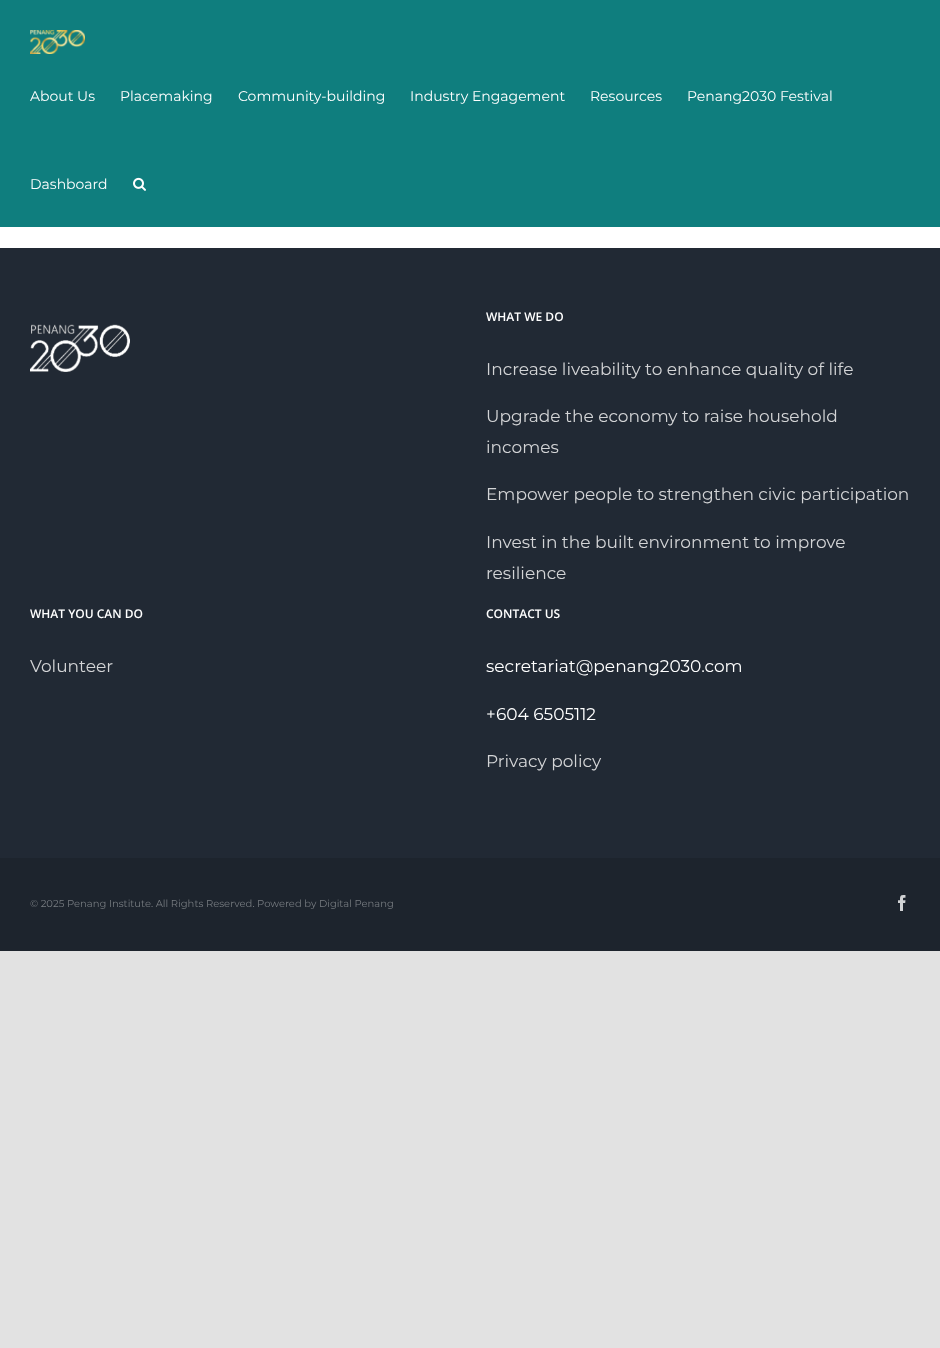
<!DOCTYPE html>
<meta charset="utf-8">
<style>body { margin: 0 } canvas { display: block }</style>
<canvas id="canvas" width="940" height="1348"></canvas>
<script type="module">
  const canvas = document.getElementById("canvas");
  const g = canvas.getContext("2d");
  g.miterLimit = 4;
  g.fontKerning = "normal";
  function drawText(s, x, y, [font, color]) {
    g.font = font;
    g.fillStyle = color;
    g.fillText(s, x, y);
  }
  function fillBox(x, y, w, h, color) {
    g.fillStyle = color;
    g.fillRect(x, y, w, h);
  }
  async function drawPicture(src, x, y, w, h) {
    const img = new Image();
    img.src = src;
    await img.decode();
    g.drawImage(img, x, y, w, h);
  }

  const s1 = ["14px Montserrat", "#FFFFFF"];
  const s2 = ["600 12px Open Sans", "#FFFFFF"];
  const s3 = ["17px Montserrat", "#D3D4D6"];
  const s4 = ["17px Montserrat", "#FFFFFF"];
  const s5 = ["10px Montserrat", "#777C81"];

  fillBox(0, 0, 940, 1348, "#E2E2E2");
  fillBox(0, 227, 940, 21, "#FFFFFF");
  fillBox(0, 0, 940, 227, "#0F7E7E");
  await drawPicture("pic1.png", 30, 30, 55, 24);
  drawText("About Us", 30, 101, s1);
  drawText("Placemaking", 120, 101, s1);
  drawText("Community-building", 238, 101, s1);
  drawText("Industry Engagement", 410, 101, s1);
  drawText("Resources", 590, 101, s1);
  drawText("Penang2030 Festival", 687, 101, s1);
  drawText("Dashboard", 30, 189, s1);
  await drawPicture("pic2.png", 133, 177, 13, 14);
  fillBox(0, 248, 940, 610, "#212934");
  await drawPicture("pic3.png", 30, 324, 100, 48);
  drawText("WHAT WE DO", 486, 321, s2);
  drawText("Increase liveability to enhance quality of life", 486, 375, s3);
  drawText("Upgrade the economy to raise household", 486, 422, s3);
  drawText("incomes", 486, 453, s3);
  drawText("Empower people to strengthen civic participation", 486, 500, s3);
  drawText("Invest in the built environment to improve", 486, 548, s3);
  drawText("resilience", 486, 579, s3);
  drawText("WHAT YOU CAN DO", 30, 618, s2);
  drawText("Volunteer", 30, 672, s3);
  drawText("CONTACT US", 486, 618, s2);
  drawText("secretariat@penang2030.com", 486, 672, s4);
  drawText("+604 6505112", 486, 720, s4);
  drawText("Privacy policy", 486, 767, s3);
  fillBox(0, 858, 940, 93, "#1D242D");
  drawText("© 2025 Penang Institute. All Rights Reserved. Powered by Digital Penang", 30, 907, s5);
  await drawPicture("pic4.png", 898, 895, 8, 16);
</script>
